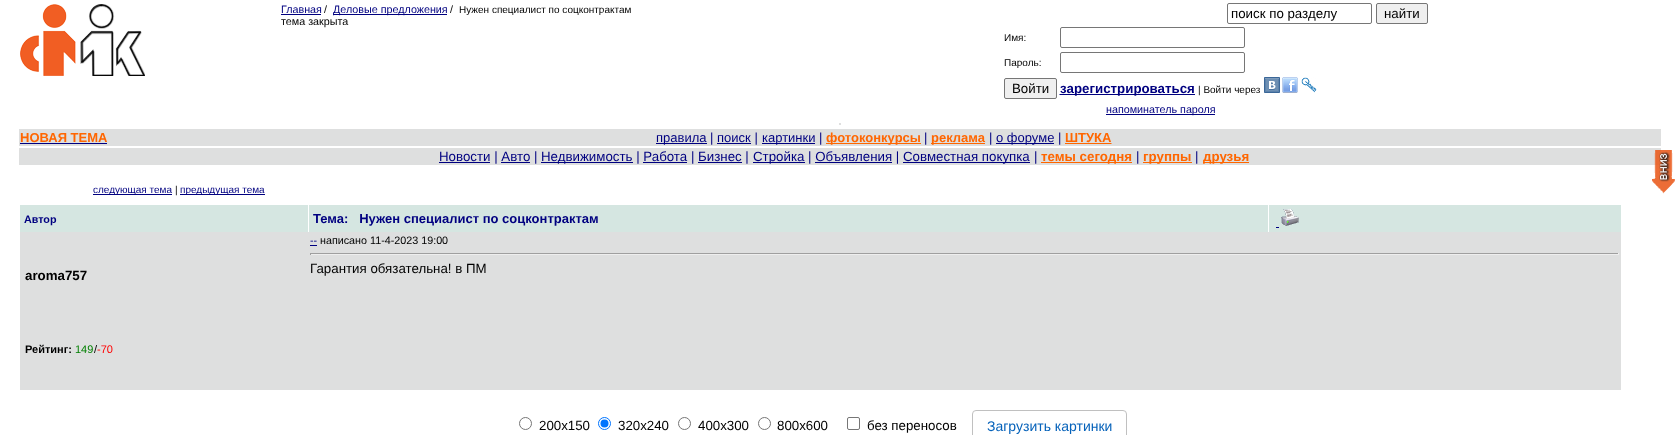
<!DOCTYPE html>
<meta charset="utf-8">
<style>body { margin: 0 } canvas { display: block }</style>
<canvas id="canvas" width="1680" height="435"></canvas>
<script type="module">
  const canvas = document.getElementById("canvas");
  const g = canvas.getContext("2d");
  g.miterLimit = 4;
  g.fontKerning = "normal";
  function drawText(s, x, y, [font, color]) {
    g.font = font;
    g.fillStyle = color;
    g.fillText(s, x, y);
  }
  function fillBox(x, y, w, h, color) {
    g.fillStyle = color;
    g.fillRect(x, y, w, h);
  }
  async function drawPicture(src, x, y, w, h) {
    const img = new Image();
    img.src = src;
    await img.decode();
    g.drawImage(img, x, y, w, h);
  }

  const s1 = ["10.75px Liberation Sans", "#000080"];
  const s2 = ["10.75px Liberation Sans", "#000000"];
  const s3 = ["10px Liberation Sans", "#000000"];
  const s4 = ["13.3px Liberation Sans", "#000000"];
  const s5 = ["bold 13.3px Liberation Sans", "#000080"];
  const s6 = ["bold 13px Liberation Sans", "#FF6600"];
  const s7 = ["13px Liberation Sans", "#000080"];
  const s8 = ["13.3px Liberation Sans", "#000080"];
  const s9 = ["bold 13.3px Liberation Sans", "#FF6600"];
  const s10 = ["10px Liberation Sans", "#000080"];
  const s11 = ["bold 10.75px Liberation Sans", "#000080"];
  const s12 = ["bold 13px Liberation Sans", "#000080"];
  const s13 = ["bold 13.3px Liberation Sans", "#000000"];
  const s14 = ["bold 11px Liberation Sans", "#000000"];
  const s15 = ["11px Liberation Sans", "#008000"];
  const s16 = ["11px Liberation Sans", "#000000"];
  const s17 = ["11px Liberation Sans", "#FF0000"];
  const s18 = ["14px Liberation Sans", "#0662BA"];

  fillBox(0, 0, 1680, 435, "#FFFFFF");
  await drawPicture("pic1.png", 20, 4, 125, 72);
  drawText("Главная", 281, 13, s1);
  fillBox(281, 14, 40, 1, "#000080");
  drawText("/", 324, 13, s2);
  fillBox(333, 14, 114, 1, "#000080");
  drawText("Деловые предложения", 333, 13, s1);
  drawText("/", 450, 13, s2);
  drawText("Нужен специалист по соцконтрактам", 459, 13, s3);
  drawText("тема закрыта", 281, 25, s2);
  g.beginPath();
  g.roundRect(1227.5, 3.5, 144, 20, 1.5);
  g.strokeStyle = "#767676";
  g.stroke();
  drawText("поиск по разделу", 1231, 18, s4);
  g.fillStyle = "#EFEFEF";
  g.beginPath();
  g.roundRect(1376.5, 3.5, 51, 20, 1.5);
  g.fill();
  g.stroke();
  drawText("найти", 1384, 18, s4);
  drawText("Имя:", 1004, 41, s3);
  g.beginPath();
  g.roundRect(1060.5, 27.5, 184, 20, 1.5);
  g.stroke();
  drawText("Пароль:", 1004, 66, s3);
  g.beginPath();
  g.roundRect(1060.5, 52.5, 184, 20, 1.5);
  g.stroke();
  g.fillStyle = "#EFEFEF";
  g.beginPath();
  g.roundRect(1004.5, 78.5, 52, 20, 1.5);
  g.fill();
  g.stroke();
  drawText("Войти", 1012, 93, s4);
  drawText("за", 1060, 93, s5);
  g.beginPath();
  g.moveTo(1059.5, 94.5);
  g.lineTo(1073.5, 94.5);
  g.strokeStyle = "#000080";
  g.setLineDash([1, 1]);
  g.stroke();
  fillBox(1060, 94, 14, 1, "#000080");
  g.beginPath();
  g.moveTo(1073.5, 94.5);
  g.lineTo(1094.5, 94.5);
  g.stroke();
  fillBox(1074, 94, 21, 1, "#000080");
  drawText("рег", 1074, 93, s5);
  g.beginPath();
  g.moveTo(1094.5, 94.5);
  g.lineTo(1195, 94.5);
  g.stroke();
  fillBox(1095, 94, 100, 1, "#000080");
  drawText("истрироваться", 1095, 93, s5);
  drawText("| Войти через", 1198, 93, s3);
  await drawPicture("pic2.png", 1264, 77, 16, 16);
  await drawPicture("pic3.png", 1282, 77, 16, 16);
  await drawPicture("pic4.png", 1301, 77, 16, 16);
  fillBox(1106, 114, 109, 1, "#000080");
  drawText("напоминатель пароля", 1106, 113, s1);
  fillBox(839, 123, 2, 2, "#DEDFDF");
  fillBox(19, 129, 1642, 17, "#DEDFDF");
  drawText("НОВАЯ ТЕМА", 20, 142, s6);
  fillBox(20, 143, 87, 1, "#000080");
  fillBox(656, 143, 51, 1, "#000080");
  drawText("правила | поиск |", 656, 142, s7);
  fillBox(762, 143, 53, 1, "#000080");
  drawText("картинки |", 762, 142, s7);
  fillBox(826, 143, 95, 1, "#FF6600");
  drawText("фотоконкурсы", 826, 142, s6);
  drawText("|", 924, 142, s7);
  fillBox(931, 143, 54, 1, "#FF6600");
  drawText("реклама", 931, 142, s6);
  drawText("|", 989, 142, s7);
  fillBox(996, 143, 58, 1, "#000080");
  drawText("о форуме |", 996, 142, s7);
  drawText("ШТУКА", 1065, 142, s6);
  g.beginPath();
  g.moveTo(1065, 143.5);
  g.lineTo(1111.5, 143.5);
  g.strokeStyle = "#FF6600";
  g.stroke();
  fillBox(1065, 143, 46, 1, "#FF6600");
  fillBox(717, 143, 34, 1, "#000080");
  fillBox(19, 148, 1642, 17, "#DEDFDF");
  fillBox(439, 162, 51, 1, "#000080");
  drawText("Новости | Авто |", 439, 161, s8);
  fillBox(501, 162, 29, 1, "#000080");
  fillBox(541, 162, 92, 1, "#000080");
  drawText("Недвижимость | Работа | Бизнес |", 541, 161, s8);
  fillBox(643, 162, 44, 1, "#000080");
  fillBox(698, 162, 44, 1, "#000080");
  fillBox(753, 162, 52, 1, "#000080");
  drawText("Стройка | Объявления |", 753, 161, s8);
  fillBox(815, 162, 77, 1, "#000080");
  fillBox(903, 162, 127, 1, "#000080");
  drawText("Совместная покупка", 903, 161, s8);
  drawText("|", 1034, 161, s8);
  fillBox(1041, 162, 91, 1, "#FF6600");
  drawText("темы сегодня", 1041, 161, s9);
  drawText("|", 1136, 161, s8);
  fillBox(1143, 162, 49, 1, "#FF6600");
  drawText("группы", 1143, 161, s9);
  drawText("|", 1195, 161, s8);
  fillBox(1203, 162, 46, 1, "#FF6600");
  drawText("друзья", 1203, 161, s9);
  fillBox(93, 194, 79, 1, "#000080");
  drawText("следующая тема", 93, 193, s10);
  drawText("|", 175, 193, s3);
  fillBox(180, 194, 85, 1, "#000080");
  drawText("предыдущая тема", 180, 193, s10);
  await drawPicture("pic5.png", 1652, 150, 23, 44);
  fillBox(20, 205, 1601, 27, "#D5E6E1");
  drawText("Автор", 24, 223, s11);
  fillBox(1268, 205, 1, 27, "#FFFFFF");
  fillBox(308, 205, 1, 27, "#FFFFFF");
  drawText("Тема:   Нужен специалист по соцконтрактам", 313, 223, s12);
  await drawPicture("pic6.png", 1281, 209, 18, 17);
  fillBox(1276, 227, 3, 1, "#000080");
  fillBox(20, 232, 1601, 158, "#DEDFDF");
  drawText("--", 310, 244, s1);
  fillBox(310, 245, 7, 1, "#000080");
  drawText("написано 11-4-2023 19:00", 320, 244, s2);
  fillBox(310, 253, 1309, 1, "#9F9F9F");
  fillBox(1618, 253, 1, 2, "#EEEEEE");
  fillBox(310, 254, 1309, 1, "#EEEEEE");
  fillBox(310, 253, 1, 2, "#9F9F9F");
  drawText("Гарантия обязательна! в ПМ", 310, 273, s4);
  drawText("aroma757", 25, 280, s13);
  drawText("Рейтинг:", 25, 353, s14);
  drawText("149", 75, 353, s15);
  drawText("/", 94, 353, s16);
  drawText("-70", 97, 353, s17);
  g.beginPath();
  g.arc(525.5, 423.5, 6, 0, Math.PI * 2);
  g.strokeStyle = "#767676";
  g.setLineDash([]);
  g.stroke();
  drawText("200x150", 539, 430, s4);
  g.beginPath();
  g.arc(604.5, 423.5, 6, 0, Math.PI * 2);
  g.strokeStyle = "#0075FF";
  g.stroke();
  g.fillStyle = "#0075FF";
  g.beginPath();
  g.arc(604.5, 423.5, 4, 0, Math.PI * 2);
  g.fill();
  drawText("320x240", 618, 430, s4);
  g.beginPath();
  g.arc(684.5, 423.5, 6, 0, Math.PI * 2);
  g.strokeStyle = "#767676";
  g.stroke();
  drawText("400x300", 698, 430, s4);
  g.beginPath();
  g.arc(764.5, 423.5, 6, 0, Math.PI * 2);
  g.stroke();
  drawText("800x600", 777, 430, s4);
  g.beginPath();
  g.roundRect(847.5, 417.5, 12, 12, 1.5);
  g.stroke();
  drawText("без переносов", 867, 430, s4);
  g.beginPath();
  g.roundRect(972.5, 410.5, 154, 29, 3.5);
  g.strokeStyle = "#C0C0C0";
  g.stroke();
  drawText("Загрузить картинки", 987, 431, s18);
</script>
